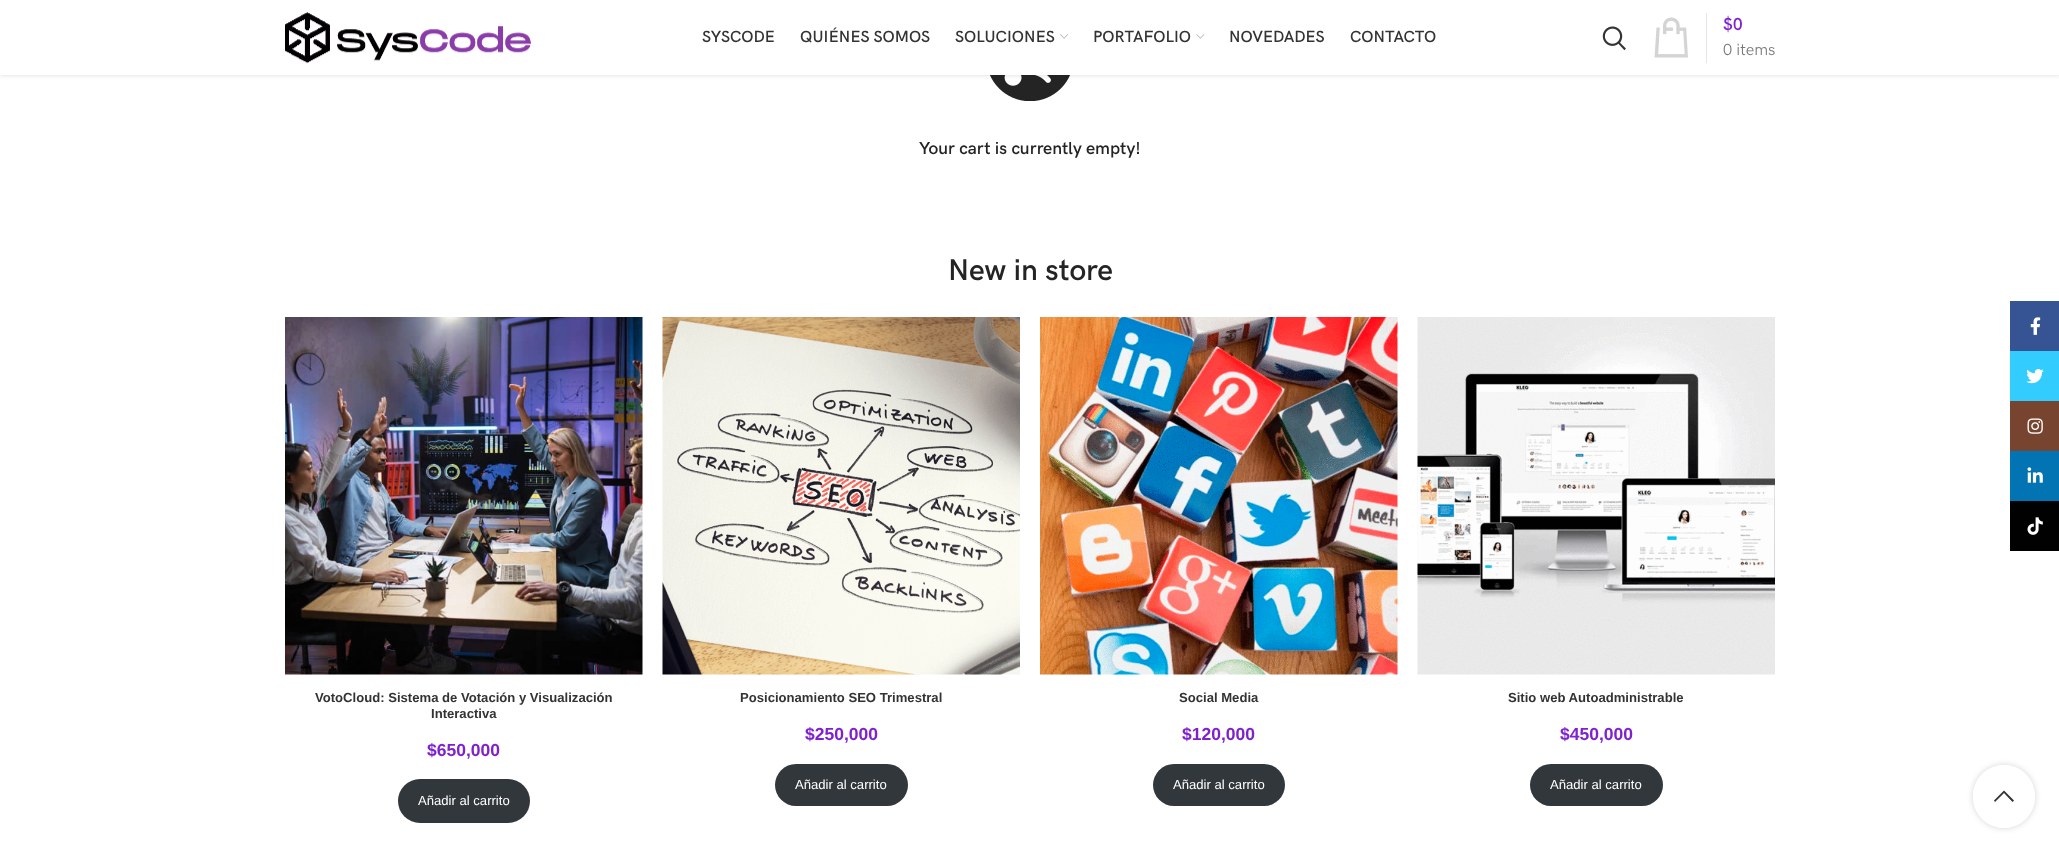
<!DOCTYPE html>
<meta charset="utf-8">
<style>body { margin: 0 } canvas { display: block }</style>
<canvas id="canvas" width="2059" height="852"></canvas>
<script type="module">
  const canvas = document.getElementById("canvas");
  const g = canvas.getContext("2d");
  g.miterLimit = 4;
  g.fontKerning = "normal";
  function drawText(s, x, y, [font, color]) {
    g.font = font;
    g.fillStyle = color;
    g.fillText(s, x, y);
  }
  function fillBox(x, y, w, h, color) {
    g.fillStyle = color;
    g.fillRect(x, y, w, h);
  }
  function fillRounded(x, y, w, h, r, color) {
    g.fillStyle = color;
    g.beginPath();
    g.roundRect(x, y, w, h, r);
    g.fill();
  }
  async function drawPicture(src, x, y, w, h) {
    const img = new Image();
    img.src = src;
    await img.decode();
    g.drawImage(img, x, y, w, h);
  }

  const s1 = ["600 16.25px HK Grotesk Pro", "#333333"];
  const s2 = ["600 17.5px HK Grotesk Pro", "#8021CE"];
  const s3 = ["16.25px HK Grotesk Pro", "#777777"];
  const s4 = ["600 17.5px HK Grotesk Pro", "#242424"];
  const s5 = ["600 30px HK Grotesk Pro", "#242424"];
  const s6 = ["bold 13.1px Liberation Sans", "#333333"];
  const s7 = ["bold 17.5px Liberation Sans", "#8021CE"];
  const s8 = ["13.1px Liberation Sans", "#FFFFFF"];

  fillBox(0, 0, 2059, 852, "#FFFFFF");
  await drawPicture("pic6.png", 990, 75, 80, 26);
  g.fillStyle = "rgba(0, 0, 0, 0.1)";
  g.filter = "blur(2px)";
  g.beginPath();
  g.rect(0, 1, 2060, 75);
  g.fill();
  g.filter = "none";
  fillBox(0, 0, 2059, 75, "#FFFFFF");
  await drawPicture("pic1.png", 285, 12, 246, 52);
  drawText("SYSCODE", 702, 42, s1);
  drawText("QUIÉNES SOMOS", 800, 42, s1);
  drawText("SOLUCIONES", 955, 42, s1);
  await drawPicture("pic2.png", 1060, 34, 8, 5);
  drawText("PORTAFOLIO", 1093, 42, s1);
  await drawPicture("pic3.png", 1196, 34, 9, 5);
  drawText("NOVEDADES", 1229, 42, s1);
  drawText("CONTACTO", 1350, 42, s1);
  await drawPicture("pic4.png", 1602, 26, 24, 25);
  await drawPicture("pic5.png", 1654, 17, 34, 41);
  fillBox(1706, 13, 1, 50, "#E6E6E6");
  drawText("$0", 1723, 30, s2);
  drawText("0 items", 1723, 55, s3);
  drawText("Your cart is currently empty!", 919, 154, s4);
  drawText("New in store", 948, 280, s5);
  await drawPicture("pic7.png", 285, 317, 358, 358);
  drawText("VotoCloud: Sistema de Votación y Visualización", 315, 702, s6);
  drawText("Interactiva", 431, 718, s6);
  drawText("$650,000", 427, 756, s7);
  fillRounded(398, 779, 132, 44, 22, "#32373C");
  drawText("Añadir al carrito", 418, 805, s8);
  await drawPicture("pic8.png", 662, 317, 358, 358);
  drawText("Posicionamiento SEO Trimestral", 740, 702, s6);
  drawText("$250,000", 805, 740, s7);
  fillRounded(775, 764, 133, 42, 21, "#32373C");
  drawText("Añadir al carrito", 795, 789, s8);
  await drawPicture("pic9.png", 1040, 317, 358, 358);
  drawText("Social Media", 1179, 702, s6);
  drawText("$120,000", 1182, 740, s7);
  fillRounded(1153, 764, 132, 42, 21, "#32373C");
  drawText("Añadir al carrito", 1173, 789, s8);
  await drawPicture("pic10.png", 1417, 317, 358, 358);
  drawText("Sitio web Autoadministrable", 1508, 702, s6);
  drawText("$450,000", 1560, 740, s7);
  fillRounded(1530, 764, 133, 42, 21, "#32373C");
  drawText("Añadir al carrito", 1550, 789, s8);
  fillBox(2010, 301, 49, 50, "#365493");
  await drawPicture("pic11.png", 2030, 317, 11, 18);
  fillBox(2010, 351, 49, 50, "#33CCFF");
  await drawPicture("pic12.png", 2026, 369, 18, 15);
  fillBox(2010, 401, 49, 50, "#774430");
  await drawPicture("pic13.png", 2027, 418, 16, 16);
  fillBox(2010, 451, 49, 50, "#0274B3");
  await drawPicture("pic14.png", 2027, 467, 16, 16);
  fillBox(2010, 501, 49, 50, "#010101");
  await drawPicture("pic15.png", 2027, 517, 16, 18);
  g.save();
  g.beginPath();
  g.moveTo(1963, 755);
  g.lineTo(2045, 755);
  g.lineTo(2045, 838);
  g.lineTo(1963, 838);
  g.closePath();
  g.moveTo(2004, 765);
  g.bezierCurveTo(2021, 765, 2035, 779, 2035, 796);
  g.lineTo(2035, 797);
  g.bezierCurveTo(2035, 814, 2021, 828, 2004, 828);
  g.bezierCurveTo(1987, 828, 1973, 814, 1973, 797);
  g.lineTo(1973, 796);
  g.bezierCurveTo(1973, 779, 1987, 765, 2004, 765);
  g.closePath();
  g.clip("evenodd");
  g.fillStyle = "rgba(0, 0, 0, 0.17)";
  g.filter = "blur(3px)";
  g.beginPath();
  g.roundRect(1973, 765, 62, 63, 31);
  g.fill();
  g.filter = "none";
  g.restore();
  fillRounded(1973, 765, 62, 63, 31, "rgba(255, 255, 255, 0.9)");
  g.fillStyle = "#333333";
  g.beginPath();
  g.moveTo(2004, 790.5);
  g.lineTo(2014, 800.5);
  g.lineTo(2012.5, 802);
  g.lineTo(2004, 793);
  g.lineTo(1995, 802);
  g.lineTo(1994, 800.5);
  g.closePath();
  g.fill();
</script>
